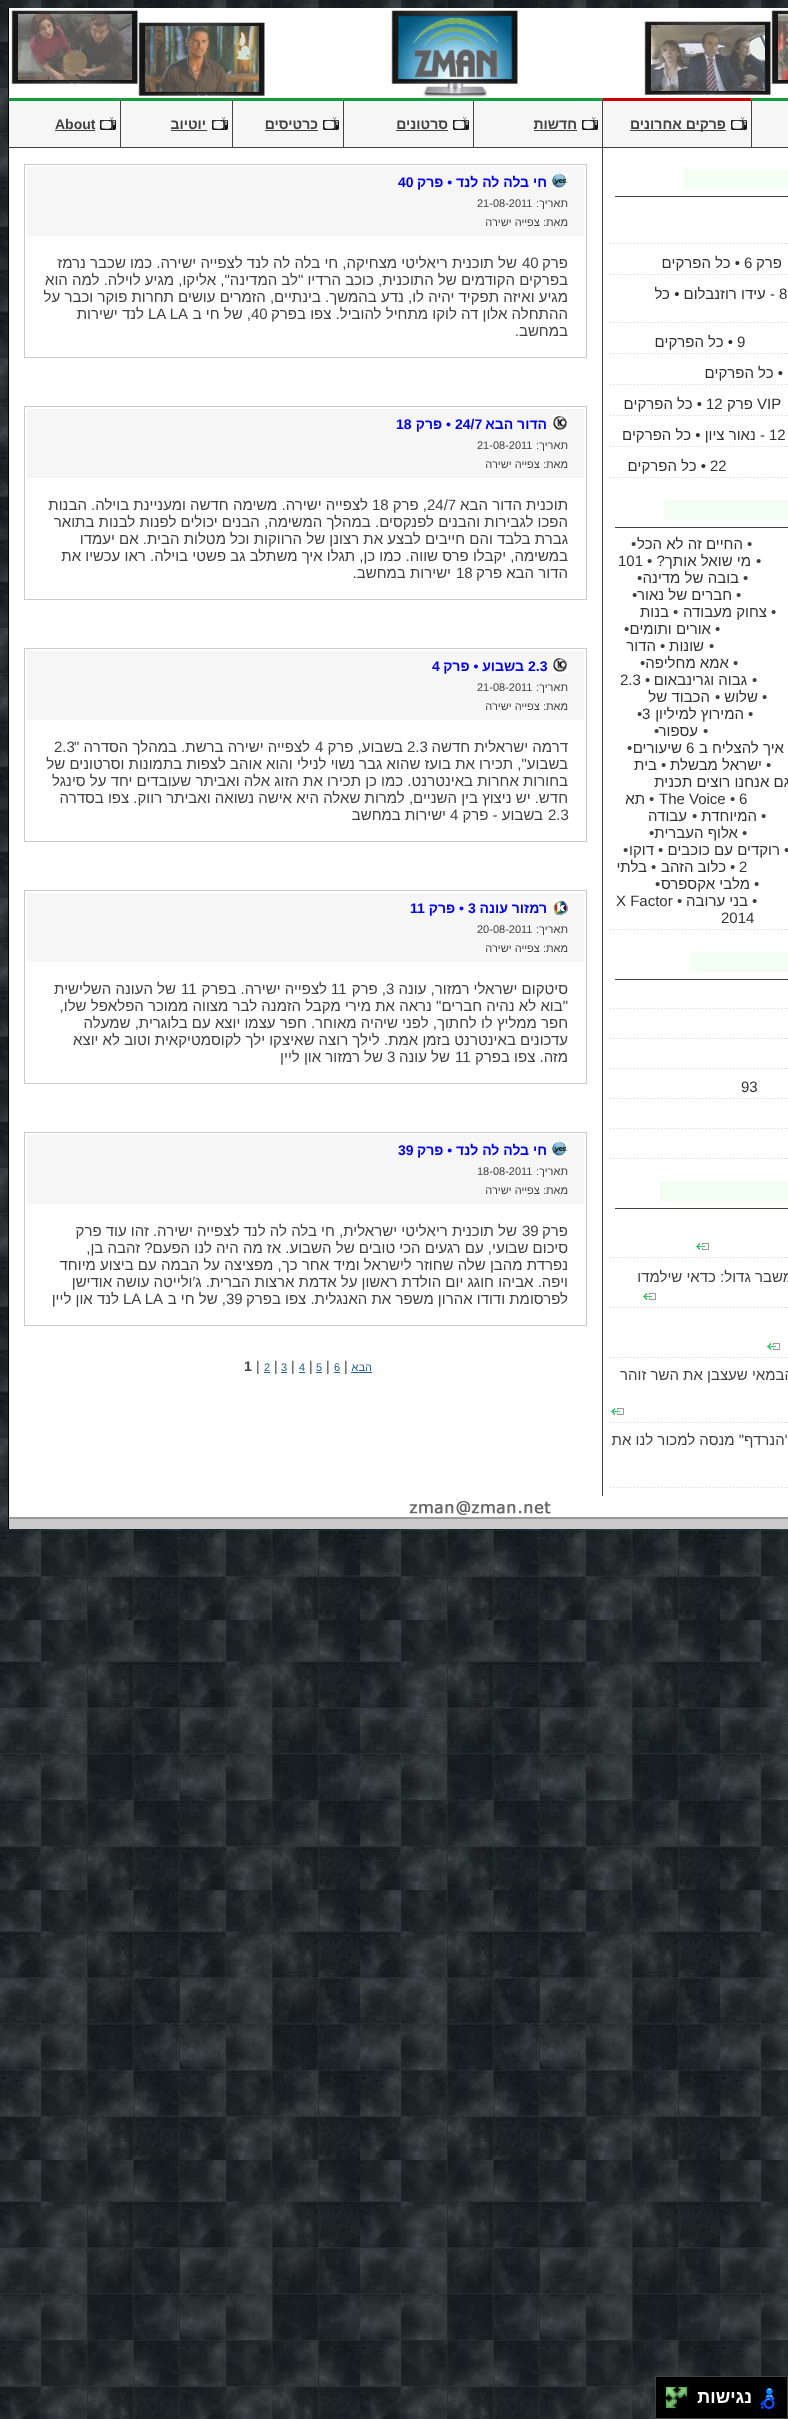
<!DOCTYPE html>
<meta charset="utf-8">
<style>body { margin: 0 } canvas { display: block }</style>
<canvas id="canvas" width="788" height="2419"></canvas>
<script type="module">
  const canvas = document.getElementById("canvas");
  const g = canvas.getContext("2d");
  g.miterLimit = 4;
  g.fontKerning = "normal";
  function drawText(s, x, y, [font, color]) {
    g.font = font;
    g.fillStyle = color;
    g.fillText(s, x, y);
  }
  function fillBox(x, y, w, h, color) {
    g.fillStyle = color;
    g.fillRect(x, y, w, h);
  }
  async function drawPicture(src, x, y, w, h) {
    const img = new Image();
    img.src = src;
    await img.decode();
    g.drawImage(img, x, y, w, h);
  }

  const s1 = ["bold 14px Liberation Sans", "#424242"];
  const s2 = ["15px Liberation Sans", "#333333"];
  const s3 = ["15px Liberation Sans", "#424242"];
  const s4 = ["bold 14px Liberation Sans", "#0000EE"];
  const s5 = ["11px Liberation Sans", "#424242"];
  const s6 = ["11px Liberation Sans", "#245E93"];
  const s7 = ["14px Liberation Sans", "#424242"];
  const s8 = ["bold 18px Liberation Sans", "#FFFFFF"];

  fillBox(0, 0, 788, 2419, "#FFFFFF");
  await drawPicture("pic1.png", 0, 0, 788, 2419);
  fillBox(8, 8, 1, 90, "#000000");
  await drawPicture("pic2.png", 9, 8, 779, 90);
  fillBox(9, 148, 779, 1348, "#FFFFFF");
  fillBox(8, 98, 1, 1398, "#000000");
  fillBox(120, 98, 668, 49, "#F6F6F6");
  g.fillStyle = "#119F3A";
  g.beginPath();
  g.moveTo(751, 98);
  g.lineTo(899, 98);
  g.lineTo(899, 101);
  g.lineTo(752, 101);
  g.closePath();
  g.fill();
  fillBox(9, 147, 779, 1, "#424242");
  g.beginPath();
  g.moveTo(751, 148);
  g.lineTo(751, 98);
  g.lineTo(752, 101);
  g.lineTo(752, 147);
  g.closePath();
  g.fill();
  await drawPicture("pic3.png", 731, 117, 16, 13);
  g.fillStyle = "#CC0000";
  g.beginPath();
  g.moveTo(602, 98);
  g.lineTo(751, 98);
  g.lineTo(751, 101);
  g.lineTo(603, 101);
  g.closePath();
  g.fill();
  g.fillStyle = "#424242";
  g.beginPath();
  g.moveTo(602, 148);
  g.lineTo(602, 98);
  g.lineTo(603, 101);
  g.lineTo(603, 147);
  g.closePath();
  g.fill();
  fillBox(630, 130, 96, 1, "#424242");
  g.direction = "rtl";
  drawText("פרקים אחרונים", 726, 129, s1);
  await drawPicture("pic3.png", 582, 117, 16, 13);
  g.fillStyle = "#119F3A";
  g.beginPath();
  g.moveTo(473, 98);
  g.lineTo(602, 98);
  g.lineTo(602, 101);
  g.lineTo(474, 101);
  g.closePath();
  g.fill();
  g.fillStyle = "#424242";
  g.beginPath();
  g.moveTo(473, 148);
  g.lineTo(473, 98);
  g.lineTo(474, 101);
  g.lineTo(474, 147);
  g.closePath();
  g.fill();
  drawText("חדשות", 577, 129, s1);
  fillBox(534, 130, 43, 1, "#424242");
  await drawPicture("pic3.png", 453, 117, 16, 13);
  g.fillStyle = "#119F3A";
  g.beginPath();
  g.moveTo(343, 98);
  g.lineTo(473, 98);
  g.lineTo(473, 101);
  g.lineTo(344, 101);
  g.closePath();
  g.fill();
  g.fillStyle = "#424242";
  g.beginPath();
  g.moveTo(343, 148);
  g.lineTo(343, 98);
  g.lineTo(344, 101);
  g.lineTo(344, 147);
  g.closePath();
  g.fill();
  drawText("סרטונים", 448, 129, s1);
  fillBox(396, 130, 52, 1, "#424242");
  await drawPicture("pic3.png", 323, 117, 16, 13);
  g.fillStyle = "#119F3A";
  g.beginPath();
  g.moveTo(232, 98);
  g.lineTo(343, 98);
  g.lineTo(343, 101);
  g.lineTo(233, 101);
  g.closePath();
  g.fill();
  g.fillStyle = "#424242";
  g.beginPath();
  g.moveTo(232, 148);
  g.lineTo(232, 98);
  g.lineTo(233, 101);
  g.lineTo(233, 147);
  g.closePath();
  g.fill();
  drawText("כרטיסים", 318, 129, s1);
  fillBox(265, 130, 53, 1, "#424242");
  await drawPicture("pic3.png", 212, 117, 16, 13);
  g.fillStyle = "#119F3A";
  g.beginPath();
  g.moveTo(120, 98);
  g.lineTo(232, 98);
  g.lineTo(232, 101);
  g.lineTo(121, 101);
  g.closePath();
  g.fill();
  g.fillStyle = "#424242";
  g.beginPath();
  g.moveTo(120, 148);
  g.lineTo(120, 98);
  g.lineTo(121, 101);
  g.lineTo(121, 147);
  g.closePath();
  g.fill();
  drawText("יוטיוב", 206, 129, s1);
  fillBox(171, 130, 36, 1, "#424242");
  fillBox(9, 101, 111, 46, "#F6F6F6");
  await drawPicture("pic3.png", 100, 117, 16, 13);
  fillBox(9, 98, 111, 3, "#119F3A");
  g.direction = "ltr";
  drawText("About", 55, 129, s1);
  fillBox(55, 130, 40, 1, "#424242");
  fillBox(602, 148, 1, 1348, "#424242");
  fillBox(615, 196, 173, 1, "#424242");
  fillBox(684, 169, 104, 20, "#F2FFF2");
  await drawPicture("pic4.png", 609, 243, 179, 1);
  await drawPicture("pic4.png", 609, 274, 179, 1);
  g.direction = "rtl";
  drawText("פרק", 782, 268, s2);
  g.direction = "ltr";
  drawText("6", 744, 268, s2);
  g.direction = "rtl";
  drawText("• כל הפרקים", 740, 268, s2);
  await drawPicture("pic4.png", 609, 322, 179, 1);
  g.direction = "ltr";
  drawText("8", 779, 299, s2);
  g.direction = "rtl";
  drawText("- עידו רוזנבלום • כל", 775, 299, s2);
  await drawPicture("pic4.png", 609, 353, 179, 1);
  g.direction = "ltr";
  drawText("9", 737, 347, s2);
  g.direction = "rtl";
  drawText("• כל הפרקים", 733, 347, s2);
  await drawPicture("pic4.png", 609, 384, 179, 1);
  drawText("• כל הפרקים", 783, 378, s2);
  await drawPicture("pic4.png", 609, 415, 179, 1);
  g.direction = "ltr";
  drawText("VIP", 757, 409, s2);
  g.direction = "rtl";
  drawText("פרק", 753, 409, s2);
  g.direction = "ltr";
  drawText("12", 706, 409, s2);
  g.direction = "rtl";
  drawText("• כל הפרקים", 702, 409, s2);
  await drawPicture("pic4.png", 609, 446, 179, 1);
  g.direction = "ltr";
  drawText("12", 769, 440, s2);
  g.direction = "rtl";
  drawText("- נאור ציון • כל הפרקים", 765, 440, s2);
  await drawPicture("pic4.png", 609, 477, 179, 1);
  g.direction = "ltr";
  drawText("22", 710, 471, s2);
  g.direction = "rtl";
  drawText("• כל הפרקים", 706, 471, s2);
  fillBox(615, 527, 173, 1, "#424242");
  fillBox(664, 500, 124, 20, "#F2FFF2");
  await drawPicture("pic4.png", 609, 929, 179, 1);
  g.direction = "ltr";
  drawText("•", 747, 549, s3);
  g.direction = "rtl";
  drawText("החיים זה לא הכל", 743, 549, s2);
  g.direction = "ltr";
  drawText("•", 631, 549, s3);
  drawText("•", 756, 566, s3);
  g.direction = "rtl";
  drawText("מי שואל אותך?", 751, 566, s2);
  g.direction = "ltr";
  drawText("•", 647, 566, s3);
  drawText("101", 618, 566, s2);
  drawText("•", 743, 583, s3);
  g.direction = "rtl";
  drawText("בובה של מדינה", 739, 583, s2);
  g.direction = "ltr";
  drawText("•", 637, 583, s3);
  drawText("•", 736, 600, s3);
  g.direction = "rtl";
  drawText("חברים של נאור", 732, 600, s2);
  g.direction = "ltr";
  drawText("•", 632, 600, s3);
  drawText("•", 771, 617, s3);
  g.direction = "rtl";
  drawText("צחוק מעבודה", 767, 617, s2);
  g.direction = "ltr";
  drawText("•", 673, 617, s3);
  g.direction = "rtl";
  drawText("בנות", 669, 617, s2);
  g.direction = "ltr";
  drawText("•", 715, 634, s3);
  g.direction = "rtl";
  drawText("אורים ותומים", 711, 634, s2);
  g.direction = "ltr";
  drawText("•", 624, 634, s3);
  drawText("•", 709, 651, s3);
  g.direction = "rtl";
  drawText("שונות", 704, 651, s2);
  g.direction = "ltr";
  drawText("•", 660, 651, s3);
  g.direction = "rtl";
  drawText("הדור", 656, 651, s2);
  g.direction = "ltr";
  drawText("•", 733, 668, s3);
  g.direction = "rtl";
  drawText("אמא מחליפה", 729, 668, s2);
  g.direction = "ltr";
  drawText("•", 640, 668, s3);
  drawText("•", 752, 685, s3);
  g.direction = "rtl";
  drawText("גבוה וגרינבאום", 747, 685, s2);
  g.direction = "ltr";
  drawText("•", 645, 685, s3);
  drawText("2.3", 620, 685, s2);
  drawText("•", 762, 702, s3);
  g.direction = "rtl";
  drawText("שלוש", 758, 702, s2);
  g.direction = "ltr";
  drawText("•", 715, 702, s3);
  g.direction = "rtl";
  drawText("הכבוד של", 710, 702, s2);
  g.direction = "ltr";
  drawText("•", 748, 719, s3);
  g.direction = "rtl";
  drawText("המירוץ למיליון", 744, 719, s2);
  g.direction = "ltr";
  drawText("3", 642, 719, s2);
  drawText("•", 637, 719, s3);
  drawText("•", 703, 736, s3);
  g.direction = "rtl";
  drawText("עספור", 698, 736, s2);
  g.direction = "ltr";
  drawText("•", 654, 736, s3);
  g.direction = "rtl";
  drawText("איך להצליח ב", 784, 753, s2);
  g.direction = "ltr";
  drawText("6", 686, 753, s2);
  g.direction = "rtl";
  drawText("שיעורים", 682, 753, s2);
  g.direction = "ltr";
  drawText("•", 627, 753, s3);
  drawText("•", 766, 770, s3);
  g.direction = "rtl";
  drawText("ישראל מבשלת", 762, 770, s2);
  g.direction = "ltr";
  drawText("•", 661, 770, s3);
  g.direction = "rtl";
  drawText("בית", 657, 770, s2);
  drawText("גם אנחנו רוצים תכנית", 790, 787, s2);
  g.direction = "ltr";
  drawText("6", 739, 804, s2);
  drawText("•", 730, 804, s3);
  drawText("The Voice", 659, 804, s2);
  drawText("•", 649, 804, s3);
  g.direction = "rtl";
  drawText("תא", 645, 804, s2);
  g.direction = "ltr";
  drawText("•", 761, 821, s3);
  g.direction = "rtl";
  drawText("המיוחדת", 757, 821, s2);
  g.direction = "ltr";
  drawText("•", 692, 821, s3);
  g.direction = "rtl";
  drawText("עבודה", 687, 821, s2);
  g.direction = "ltr";
  drawText("•", 742, 838, s3);
  g.direction = "rtl";
  drawText("אלוף העברית", 738, 838, s2);
  g.direction = "ltr";
  drawText("•", 649, 838, s3);
  drawText("•", 784, 855, s3);
  g.direction = "rtl";
  drawText("רוקדים עם כוכבים", 780, 855, s2);
  g.direction = "ltr";
  drawText("•", 658, 855, s3);
  g.direction = "rtl";
  drawText("דוקו", 654, 855, s2);
  g.direction = "ltr";
  drawText("•", 623, 855, s3);
  drawText("2", 739, 872, s2);
  drawText("•", 730, 872, s3);
  g.direction = "rtl";
  drawText("כלוב הזהב", 726, 872, s2);
  g.direction = "ltr";
  drawText("•", 651, 872, s3);
  g.direction = "rtl";
  drawText("בלתי", 647, 872, s2);
  g.direction = "ltr";
  drawText("•", 754, 889, s3);
  g.direction = "rtl";
  drawText("מלבי אקספרס", 750, 889, s2);
  g.direction = "ltr";
  drawText("•", 655, 889, s3);
  drawText("•", 752, 906, s3);
  g.direction = "rtl";
  drawText("בני ערובה", 748, 906, s2);
  g.direction = "ltr";
  drawText("•", 677, 906, s3);
  drawText("X Factor", 616, 906, s2);
  drawText("2014", 721, 923, s2);
  fillBox(615, 979, 173, 1, "#424242");
  fillBox(690, 952, 98, 20, "#F2FFF2");
  await drawPicture("pic4.png", 609, 1008, 179, 1);
  await drawPicture("pic4.png", 609, 1038, 179, 1);
  await drawPicture("pic4.png", 609, 1068, 179, 1);
  await drawPicture("pic4.png", 609, 1098, 179, 1);
  drawText("93", 741, 1092, s2);
  await drawPicture("pic4.png", 609, 1128, 179, 1);
  await drawPicture("pic4.png", 609, 1158, 179, 1);
  fillBox(615, 1208, 173, 1, "#424242");
  fillBox(660, 1181, 128, 20, "#F2FFF2");
  await drawPicture("pic4.png", 609, 1257, 179, 1);
  await drawPicture("pic5.png", 696, 1243, 13, 7);
  await drawPicture("pic4.png", 609, 1307, 179, 1);
  g.direction = "rtl";
  drawText("במשבר גדול: כדאי שילמדו", 802, 1282, s3);
  await drawPicture("pic5.png", 643, 1293, 13, 7);
  await drawPicture("pic4.png", 609, 1357, 179, 1);
  await drawPicture("pic5.png", 767, 1343, 13, 7);
  await drawPicture("pic4.png", 609, 1422, 179, 1);
  drawText("הבמאי שעצבן את השר זוהר", 794, 1380, s3);
  await drawPicture("pic5.png", 611, 1408, 13, 7);
  await drawPicture("pic4.png", 609, 1487, 179, 1);
  drawText("\"הנרדף\" מנסה למכור לנו את", 790, 1445, s3);
  g.strokeStyle = "#CCCCCC";
  g.strokeRect(24.5, 164.5, 562, 193);
  fillBox(27, 167, 557, 69, "#F6F6F6");
  await drawPicture("pic6.png", 552, 173, 16, 16);
  drawText("חי בלה לה לנד • פרק", 547, 187, s4);
  g.direction = "ltr";
  drawText("40", 398, 187, s4);
  fillBox(392, 188, 1, 1, "#FFFFFF");
  g.direction = "rtl";
  drawText("תאריך:", 568, 207, s5);
  g.direction = "ltr";
  drawText("21-08-2011", 477, 207, s5);
  g.direction = "rtl";
  drawText("מאת: צפייה ישירה", 568, 226, s5);
  drawText("פרק", 568, 268, s3);
  g.direction = "ltr";
  drawText("40", 522, 268, s3);
  g.direction = "rtl";
  drawText("של תוכנית ריאליטי מצחיקה, חי בלה לה לנד לצפייה ישירה. כמו שכבר נרמז", 517, 268, s3);
  drawText("בפרקים הקודמים של התוכנית, כוכב הרדיו \"לב המדינה\", אליקו, מגיע לוילה. למה הוא", 568, 285, s3);
  drawText("מגיע ואיזה תפקיד יהיה לו, נדע בהמשך. בינתיים, הזמרים עושים תחרות פוקר וכבר על", 568, 302, s3);
  drawText("ההתחלה אלון דה לוקו מתחיל להוביל. צפו בפרק", 568, 319, s3);
  g.direction = "ltr";
  drawText("40", 251, 319, s3);
  g.direction = "rtl";
  drawText(", של חי ב", 251, 319, s3);
  g.direction = "ltr";
  drawText("LA LA", 148, 319, s3);
  g.direction = "rtl";
  drawText("לנד ישירות", 144, 319, s3);
  drawText("במחשב.", 568, 336, s3);
  g.strokeRect(24.5, 406.5, 562, 193);
  fillBox(27, 409, 557, 69, "#F6F6F6");
  await drawPicture("pic7.png", 552, 415, 16, 16);
  drawText("הדור הבא", 547, 429, s4);
  g.direction = "ltr";
  drawText("24/7", 455, 429, s4);
  g.direction = "rtl";
  drawText("• פרק", 451, 429, s4);
  g.direction = "ltr";
  drawText("18", 396, 429, s4);
  fillBox(390, 430, 1, 1, "#FFFFFF");
  g.direction = "rtl";
  drawText("תאריך:", 568, 449, s5);
  g.direction = "ltr";
  drawText("21-08-2011", 477, 449, s5);
  g.direction = "rtl";
  drawText("מאת: צפייה ישירה", 568, 468, s5);
  drawText("תוכנית הדור הבא", 568, 510, s3);
  g.direction = "ltr";
  drawText("24/7", 427, 510, s3);
  g.direction = "rtl";
  drawText(", פרק", 427, 510, s3);
  g.direction = "ltr";
  drawText("18", 372, 510, s3);
  g.direction = "rtl";
  drawText("לצפייה ישירה. משימה חדשה ומעניינת בוילה. הבנות", 368, 510, s3);
  drawText("הפכו לגבירות והבנים לפנקסים. במהלך המשימה, הבנים יכולים לפנות לבנות בתואר", 568, 527, s3);
  drawText("גברת בלבד והם חייבים לבצע את רצונן של הרווקות וכל מטלות הבית. אם יעמדו", 568, 544, s3);
  drawText("במשימה, יקבלו פרס שווה. כמו כן, תגלו איך משתלב גב פשטי בוילה. ראו עכשיו את", 568, 561, s3);
  drawText("הדור הבא פרק", 568, 578, s3);
  g.direction = "ltr";
  drawText("18", 456, 578, s3);
  g.direction = "rtl";
  drawText("ישירות במחשב.", 451, 578, s3);
  g.strokeRect(24.5, 648.5, 562, 193);
  fillBox(27, 651, 557, 69, "#F6F6F6");
  await drawPicture("pic7.png", 552, 657, 16, 16);
  g.direction = "ltr";
  drawText("2.3", 528, 671, s4);
  g.direction = "rtl";
  drawText("בשבוע • פרק", 524, 671, s4);
  g.direction = "ltr";
  drawText("4", 432, 671, s4);
  fillBox(426, 672, 1, 1, "#FFFFFF");
  g.direction = "rtl";
  drawText("תאריך:", 568, 691, s5);
  g.direction = "ltr";
  drawText("21-08-2011", 477, 691, s5);
  g.direction = "rtl";
  drawText("מאת: צפייה ישירה", 568, 710, s5);
  drawText("דרמה ישראלית חדשה", 568, 752, s3);
  g.direction = "ltr";
  drawText("2.3", 407, 752, s3);
  g.direction = "rtl";
  drawText("בשבוע, פרק", 403, 752, s3);
  g.direction = "ltr";
  drawText("4", 315, 752, s3);
  g.direction = "rtl";
  drawText("לצפייה ישירה ברשת. במהלך הסדרה \"", 310, 752, s3);
  g.direction = "ltr";
  drawText("2.3", 54, 752, s3);
  g.direction = "rtl";
  drawText("בשבוע\", תכירו את בועז שהוא גבר נשוי לנילי והוא אוהב לצפות בתמונות וסרטונים של", 568, 769, s3);
  drawText("בחורות אחרות באינטרנט. כמו כן תכירו את הזוג אלה ואביתר שעובדים יחד על סינגל", 568, 786, s3);
  drawText("חדש. יש ניצוץ בין השניים, למרות שאלה היא אישה נשואה ואביתר רווק. צפו בסדרה", 568, 803, s3);
  g.direction = "ltr";
  drawText("2.3", 548, 820, s3);
  g.direction = "rtl";
  drawText("בשבוע - פרק", 543, 820, s3);
  g.direction = "ltr";
  drawText("4", 450, 820, s3);
  g.direction = "rtl";
  drawText("ישירות במחשב", 446, 820, s3);
  g.strokeRect(24.5, 890.5, 562, 193);
  fillBox(27, 893, 557, 69, "#F6F6F6");
  await drawPicture("pic8.png", 552, 899, 16, 16);
  drawText("רמזור עונה", 547, 913, s4);
  g.direction = "ltr";
  drawText("3", 468, 913, s4);
  g.direction = "rtl";
  drawText("• פרק", 464, 913, s4);
  g.direction = "ltr";
  drawText("11", 410, 913, s4);
  fillBox(404, 914, 1, 1, "#FFFFFF");
  g.direction = "rtl";
  drawText("תאריך:", 568, 933, s5);
  g.direction = "ltr";
  drawText("20-08-2011", 477, 933, s5);
  g.direction = "rtl";
  drawText("מאת: צפייה ישירה", 568, 952, s5);
  drawText("סיטקום ישראלי רמזור, עונה", 568, 994, s3);
  g.direction = "ltr";
  drawText("3", 386, 994, s3);
  g.direction = "rtl";
  drawText(", פרק", 386, 994, s3);
  g.direction = "ltr";
  drawText("11", 331, 994, s3);
  g.direction = "rtl";
  drawText("לצפייה ישירה. בפרק", 327, 994, s3);
  g.direction = "ltr";
  drawText("11", 181, 994, s3);
  g.direction = "rtl";
  drawText("של העונה השלישית", 176, 994, s3);
  drawText("\"בוא לא נהיה חברים\" נראה את מירי מקבל הזמנה לבר מצווה ממוכר הפלאפל שלו,", 568, 1011, s3);
  drawText("חפר ממליץ לו לחתוך, לפני שיהיה מאוחר. חפר עצמו יוצא עם בלוגרית, שמעלה", 568, 1028, s3);
  drawText("עדכונים באינטרנט בזמן אמת. לילך רוצה שאיצקו ילך לקוסמטיקאית וטוב לא יוצא", 568, 1045, s3);
  drawText("מזה. צפו בפרק", 568, 1062, s3);
  g.direction = "ltr";
  drawText("11", 455, 1062, s3);
  g.direction = "rtl";
  drawText("של עונה", 450, 1062, s3);
  g.direction = "ltr";
  drawText("3", 387, 1062, s3);
  g.direction = "rtl";
  drawText("של רמזור און ליין", 383, 1062, s3);
  g.strokeRect(24.5, 1132.5, 562, 193);
  fillBox(27, 1135, 557, 69, "#F6F6F6");
  await drawPicture("pic6.png", 552, 1141, 16, 16);
  drawText("חי בלה לה לנד • פרק", 547, 1155, s4);
  g.direction = "ltr";
  drawText("39", 398, 1155, s4);
  fillBox(392, 1156, 1, 1, "#FFFFFF");
  g.direction = "rtl";
  drawText("תאריך:", 568, 1175, s5);
  g.direction = "ltr";
  drawText("18-08-2011", 477, 1175, s5);
  g.direction = "rtl";
  drawText("מאת: צפייה ישירה", 568, 1194, s5);
  drawText("פרק", 568, 1236, s3);
  g.direction = "ltr";
  drawText("39", 522, 1236, s3);
  g.direction = "rtl";
  drawText("של תוכנית ריאליטי ישראלית, חי בלה לה לנד לצפייה ישירה. זהו עוד פרק", 517, 1236, s3);
  drawText("סיכום שבועי, עם רגעים הכי טובים של השבוע. אז מה היה לנו הפעם? זהבה בן,", 568, 1253, s3);
  drawText("נפרדת מהבן שלה שחוזר לישראל ומיד אחר כך, מפציצה על הבמה עם ביצוע מיוחד", 568, 1270, s3);
  drawText("ויפה. אביהו חוגג יום הולדת ראשון על אדמת ארצות הברית. ג′ולייטה עושה אודישן", 568, 1287, s3);
  drawText("לפרסומת ודודו אהרון משפר את האנגלית. צפו בפרק", 568, 1304, s3);
  g.direction = "ltr";
  drawText("39", 226, 1304, s3);
  g.direction = "rtl";
  drawText(", של חי ב", 226, 1304, s3);
  g.direction = "ltr";
  drawText("LA LA", 123, 1304, s3);
  g.direction = "rtl";
  drawText("לנד און ליין", 119, 1304, s3);
  drawText("הבא", 372, 1371, s6);
  fillBox(351, 1372, 21, 1, "#245E93");
  g.direction = "ltr";
  drawText("|", 344, 1371, s7);
  drawText("6", 334, 1371, s6);
  fillBox(334, 1372, 6, 1, "#245E93");
  drawText("|", 326, 1371, s7);
  drawText("5", 316, 1371, s6);
  fillBox(316, 1372, 6, 1, "#245E93");
  drawText("|", 309, 1371, s7);
  drawText("4", 299, 1371, s6);
  fillBox(299, 1372, 6, 1, "#245E93");
  drawText("|", 291, 1371, s7);
  drawText("3", 281, 1371, s6);
  fillBox(281, 1372, 6, 1, "#245E93");
  drawText("|", 274, 1371, s7);
  drawText("2", 264, 1371, s6);
  fillBox(264, 1372, 6, 1, "#245E93");
  drawText("|", 256, 1371, s7);
  drawText("1", 244, 1371, s1);
  fillBox(8, 1496, 1, 33, "#000000");
  await drawPicture("pic9.png", 9, 1496, 779, 33);
  g.fillStyle = "#404040";
  g.beginPath();
  g.moveTo(655, 2376);
  g.lineTo(655, 2418);
  g.lineTo(656, 2418);
  g.lineTo(656, 2377);
  g.lineTo(787, 2377);
  g.lineTo(787, 2376);
  g.closePath();
  g.fill();
  fillBox(656, 2377, 131, 41, "#000000");
  g.save();
  g.beginPath();
  g.rect(656, 2377, 132, 42);
  g.clip();
  g.fillStyle = "#404040";
  g.beginPath();
  g.moveTo(557, 2278);
  g.lineTo(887, 2278);
  g.lineTo(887, 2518);
  g.lineTo(557, 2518);
  g.closePath();
  g.moveTo(655, 2376);
  g.lineTo(787, 2376);
  g.lineTo(787, 2418);
  g.lineTo(655, 2418);
  g.closePath();
  g.fill("evenodd");
  g.restore();
  await drawPicture("pic10.png", 760, 2388, 15, 21);
  g.direction = "rtl";
  drawText("נגישות", 752, 2403, s8);
  await drawPicture("pic11.png", 677, 2387, 10, 11);
  await drawPicture("pic12.png", 666, 2387, 11, 11);
  await drawPicture("pic13.png", 666, 2398, 11, 10);
</script>
